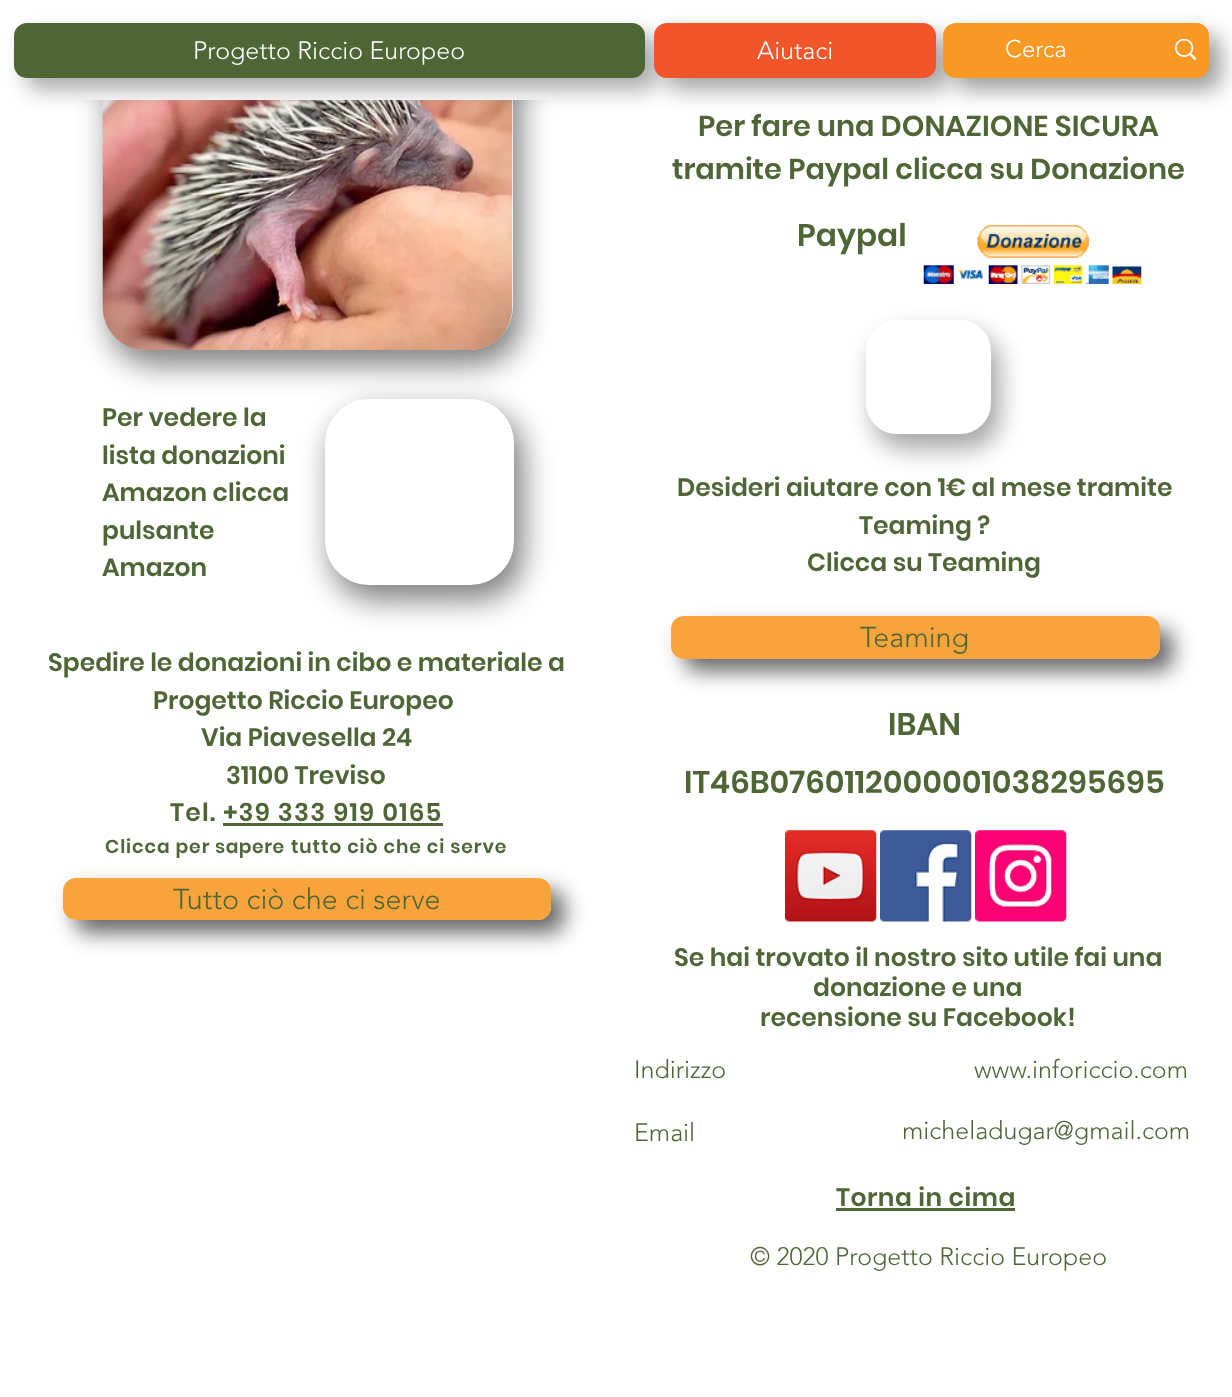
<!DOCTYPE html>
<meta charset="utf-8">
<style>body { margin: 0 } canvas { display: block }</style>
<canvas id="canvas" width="1232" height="1397"></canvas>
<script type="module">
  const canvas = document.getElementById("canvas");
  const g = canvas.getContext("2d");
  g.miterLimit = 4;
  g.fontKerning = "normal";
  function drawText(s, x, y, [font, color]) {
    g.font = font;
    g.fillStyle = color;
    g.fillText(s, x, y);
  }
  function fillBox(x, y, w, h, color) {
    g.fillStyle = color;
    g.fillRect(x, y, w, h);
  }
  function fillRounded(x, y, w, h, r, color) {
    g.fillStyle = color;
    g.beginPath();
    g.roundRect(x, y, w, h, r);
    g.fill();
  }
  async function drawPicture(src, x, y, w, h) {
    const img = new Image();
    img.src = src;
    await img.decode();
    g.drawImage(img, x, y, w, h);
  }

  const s1 = ["300 25px 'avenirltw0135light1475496'", "#FFFFFF"];
  const s2 = ["300 24px 'avenirltw0135light1475496'", "#FFFFFF"];
  const s3 = ["600 25px Poppins", "#4E6636"];
  const s4 = ["600 18.75px Poppins", "#4E6636"];
  const s5 = ["300 28.75px 'avenirltw0135light1475496'", "#4E6636"];
  const s6 = ["600 28.75px Poppins", "#4E6636"];
  const s7 = ["600 31.25px Poppins", "#4E6636"];
  const s8 = ["300 25px 'avenirltw0135light1475496'", "#4E6636"];

  fillBox(0, 0, 1232, 1397, "#FFFFFF");
  g.fillStyle = "rgba(0, 0, 0, 0.5)";
  g.filter = "blur(15px)";
  g.beginPath();
  g.roundRect(109, 38, 412, 327, 45);
  g.fill();
  g.filter = "none";
  fillRounded(103, 25, 410, 325, 44, "#FFFFFF");
  fillBox(78, 7, 474, 93, "#FFFFFF");
  await drawPicture("pic2.png", 102, 100, 411, 251);
  g.fillStyle = "rgba(0, 0, 0, 0.33)";
  g.filter = "blur(10.5px)";
  g.beginPath();
  g.roundRect(26, 35, 632, 55, 13);
  g.fill();
  g.filter = "none";
  fillRounded(14, 23, 631, 55, 13, "#4E6636");
  drawText("Progetto Riccio Europeo", 193, 59, s1);
  g.fillStyle = "rgba(0, 0, 0, 0.35)";
  g.filter = "blur(10.5px)";
  g.beginPath();
  g.roundRect(666, 35, 283, 55, 13);
  g.fill();
  g.filter = "none";
  fillRounded(654, 23, 282, 55, 13, "#F1562A");
  drawText("Aiutaci", 757, 59, s1);
  g.fillStyle = "rgba(0, 0, 0, 0.38)";
  g.filter = "blur(10.5px)";
  g.beginPath();
  g.roundRect(955, 35, 266, 55, 13);
  g.fill();
  g.filter = "none";
  fillRounded(943, 23, 266, 55, 13, "#F89825");
  drawText("Cerca", 1005, 57, s2);
  g.fillStyle = "#F89825";
  g.beginPath();
  g.roundRect(1163, 23, 46, 55, [0, 13, 13, 0]);
  g.fill();
  await drawPicture("pic1.png", 1175, 39, 21, 22);
  drawText("Per vedere la", 102, 426, s3);
  drawText("lista donazioni", 102, 464, s3);
  drawText("Amazon clicca", 102, 501, s3);
  drawText("pulsante", 102, 539, s3);
  drawText("Amazon", 102, 576, s3);
  g.fillStyle = "rgba(0, 0, 0, 0.5)";
  g.filter = "blur(15px)";
  g.beginPath();
  g.roundRect(331, 411, 192, 189, 45);
  g.fill();
  g.filter = "none";
  fillRounded(325, 399, 189, 186, 44, "#FFFFFF");
  drawText("Spedire le donazioni in cibo e materiale a", 48, 671, s3);
  drawText("Progetto Riccio Europeo", 153, 709, s3);
  drawText("Via Piavesella 24", 201, 746, s3);
  drawText("31100 Treviso", 226, 784, s3);
  g.letterSpacing = "1.25px";
  drawText("Tel. +39 333 919 0165", 170, 821, s3);
  fillBox(223, 823, 220, 3, "#4E6636");
  g.letterSpacing = "0.9px";
  drawText("Clicca per", 105, 853, s4);
  g.letterSpacing = "0.5px";
  drawText("sapere", 215, 853, s4);
  g.letterSpacing = "0.9px";
  drawText("tutto ciò che ci serve", 291, 853, s4);
  g.save();
  g.beginPath();
  g.moveTo(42, 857);
  g.lineTo(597, 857);
  g.lineTo(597, 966);
  g.lineTo(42, 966);
  g.closePath();
  g.moveTo(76, 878);
  g.lineTo(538, 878);
  g.bezierCurveTo(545, 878, 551, 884, 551, 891);
  g.lineTo(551, 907);
  g.bezierCurveTo(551, 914, 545, 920, 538, 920);
  g.lineTo(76, 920);
  g.bezierCurveTo(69, 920, 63, 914, 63, 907);
  g.lineTo(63, 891);
  g.bezierCurveTo(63, 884, 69, 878, 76, 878);
  g.closePath();
  g.clip("evenodd");
  g.fillStyle = "rgba(0, 0, 0, 0.6)";
  g.filter = "blur(10.5px)";
  g.beginPath();
  g.roundRect(75, 890, 489, 43, 13);
  g.fill();
  g.filter = "none";
  g.restore();
  fillRounded(63, 878, 488, 42, 13, "rgba(248, 152, 37, 0.89)");
  g.letterSpacing = "0px";
  drawText("Tutto ciò che ci serve", 173, 909, s5);
  drawText("Per fare una DONAZIONE SICURA", 698, 136, s6);
  drawText("tramite Paypal clicca su Donazione", 672, 179, s6);
  drawText("Paypal", 797, 246, s7);
  await drawPicture("pic3.png", 923, 225, 219, 59);
  g.fillStyle = "rgba(0, 0, 0, 0.35)";
  g.filter = "blur(12px)";
  g.beginPath();
  g.roundRect(873, 333, 127, 116, 33);
  g.fill();
  g.filter = "none";
  g.fillStyle = "#FFFFFF";
  g.beginPath();
  g.roundRect(867.5, 321.5, 122, 111, 29.5);
  g.fill();
  g.strokeStyle = "#FFFFFF";
  g.lineWidth = 3;
  g.stroke();
  drawText("Desideri aiutare con 1€ al mese tramite", 677, 496, s3);
  drawText("Teaming ?", 859, 534, s3);
  drawText("Clicca su Teaming", 807, 571, s3);
  g.save();
  g.beginPath();
  g.moveTo(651, 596);
  g.lineTo(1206, 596);
  g.lineTo(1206, 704);
  g.lineTo(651, 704);
  g.closePath();
  g.moveTo(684, 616);
  g.lineTo(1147, 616);
  g.bezierCurveTo(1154, 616, 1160, 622, 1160, 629);
  g.lineTo(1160, 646);
  g.bezierCurveTo(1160, 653, 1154, 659, 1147, 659);
  g.lineTo(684, 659);
  g.bezierCurveTo(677, 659, 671, 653, 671, 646);
  g.lineTo(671, 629);
  g.bezierCurveTo(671, 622, 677, 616, 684, 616);
  g.closePath();
  g.clip("evenodd");
  g.fillStyle = "rgba(0, 0, 0, 0.6)";
  g.filter = "blur(10.5px)";
  g.beginPath();
  g.roundRect(684, 629, 489, 42, 13);
  g.fill();
  g.filter = "none";
  g.restore();
  fillRounded(671, 616, 489, 43, 13, "rgba(248, 152, 37, 0.89)");
  drawText("Teaming", 860, 647, s5);
  drawText("IBAN", 888, 735, s7);
  drawText("IT46B0760112000001038295695", 684, 793, s7);
  await drawPicture("pic4.png", 785, 830, 92, 92);
  await drawPicture("pic5.png", 880, 830, 92, 92);
  await drawPicture("pic6.png", 975, 830, 92, 92);
  drawText("Se hai trovato il nostro sito utile fai una", 674, 966, s3);
  drawText("donazione e una", 813, 996, s3);
  drawText("recensione su Facebook!", 760, 1026, s3);
  drawText("Indirizzo", 634, 1078, s8);
  drawText("www.inforiccio.com", 974, 1078, s8);
  drawText("Email", 634, 1141, s8);
  drawText("micheladugar@gmail.com", 902, 1139, s8);
  g.letterSpacing = "0.5px";
  drawText("Torna in cima", 836, 1206, s3);
  fillBox(836, 1208, 179, 3, "#4E6636");
  g.letterSpacing = "0px";
  drawText("© 2020 Progetto Riccio Europeo", 750, 1265, s8);
</script>
